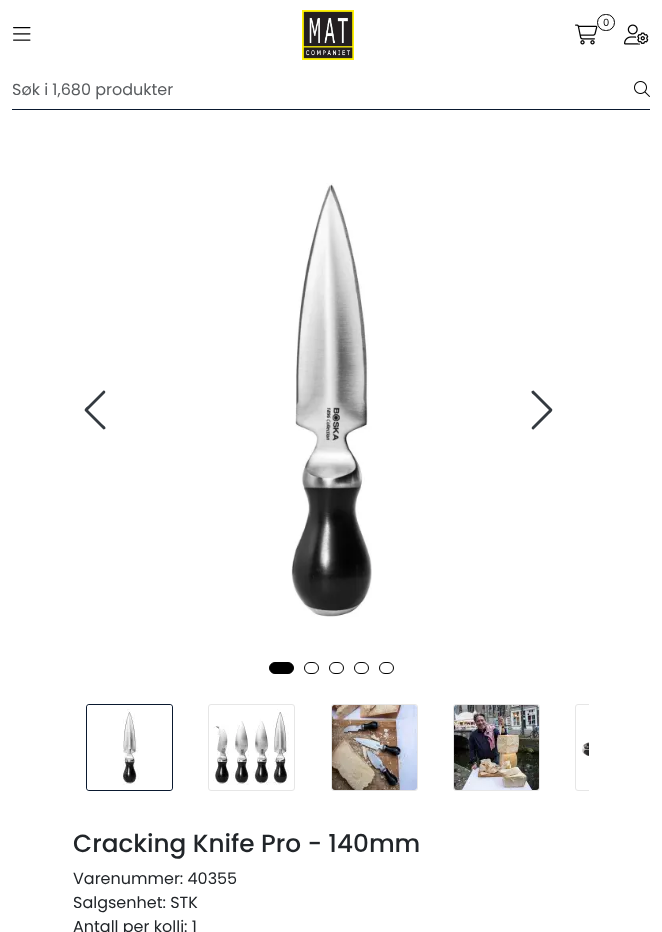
<!DOCTYPE html>
<meta charset="utf-8">
<style>body { margin: 0 } canvas { display: block }</style>
<canvas id="canvas" width="662" height="932"></canvas>
<script type="module">
  const canvas = document.getElementById("canvas");
  const g = canvas.getContext("2d");
  g.miterLimit = 4;
  g.fontKerning = "normal";
  function drawText(s, x, y, [font, color]) {
    g.font = font;
    g.fillStyle = color;
    g.fillText(s, x, y);
  }
  function fillBox(x, y, w, h, color) {
    g.fillStyle = color;
    g.fillRect(x, y, w, h);
  }
  async function drawPicture(src, x, y, w, h) {
    const img = new Image();
    img.src = src;
    await img.decode();
    g.drawImage(img, x, y, w, h);
  }

  const s1 = ["10px Poppins", "#000000"];
  const s2 = ["16px Poppins", "#595C5F"];
  const s3 = ["500 24.75px Poppins", "#212529"];
  const s4 = ["16px Poppins", "#212529"];

  fillBox(0, 0, 662, 932, "#FFFFFF");
  await drawPicture("pic1.png", 302, 10, 52, 50);
  await drawPicture("pic2.png", 575, 24, 23, 21);
  g.beginPath();
  g.roundRect(597.5, 14.5, 17, 16, 8);
  g.strokeStyle = "#000000";
  g.stroke();
  drawText("0", 603, 26, s1);
  await drawPicture("pic3.png", 624, 24, 25, 21);
  await drawPicture("pic4.png", 13, 27, 18, 14);
  fillBox(12, 109, 638, 1, "#0A192F");
  drawText("Søk i 1,680 produkter", 12, 95, s2);
  await drawPicture("pic5.png", 634, 81, 16, 16);
  await drawPicture("pic6.png", 291, 183, 81, 434);
  g.fillStyle = "#343A40";
  g.beginPath();
  g.moveTo(85, 411);
  g.bezierCurveTo(83.5, 409, 87.5, 406.5, 88, 406);
  g.lineTo(103.5, 390.5);
  g.bezierCurveTo(104.5, 390, 106, 391.5, 105, 393);
  g.lineTo(88, 410);
  g.lineTo(102, 424);
  g.bezierCurveTo(103, 425, 107, 427.5, 105, 429);
  g.lineTo(103.5, 429.5);
  g.closePath();
  g.fill();
  g.beginPath();
  g.moveTo(552, 409);
  g.bezierCurveTo(553.5, 411, 549.5, 413.5, 549, 414);
  g.lineTo(533.5, 429.5);
  g.bezierCurveTo(532.5, 430, 531, 428.5, 532, 427);
  g.lineTo(549, 410);
  g.lineTo(535, 396);
  g.bezierCurveTo(534, 395, 530, 392.5, 532, 391);
  g.lineTo(533.5, 390.5);
  g.closePath();
  g.fill();
  g.fillStyle = "#000000";
  g.beginPath();
  g.roundRect(269.5, 662.5, 24, 11, 5.5);
  g.fill();
  g.stroke();
  g.beginPath();
  g.roundRect(304.5, 662.5, 14, 11, 5.5);
  g.stroke();
  g.beginPath();
  g.roundRect(329.5, 662.5, 14, 11, 5.5);
  g.stroke();
  g.beginPath();
  g.roundRect(354.5, 662.5, 14, 11, 5.5);
  g.stroke();
  g.beginPath();
  g.roundRect(379.5, 662.5, 14, 11, 5.5);
  g.stroke();
  g.beginPath();
  g.roundRect(86.5, 704.5, 86, 86, 2.5);
  g.strokeStyle = "#0A192F";
  g.stroke();
  await drawPicture("pic7.png", 87, 705, 85, 85);
  g.beginPath();
  g.roundRect(208.5, 704.5, 86, 86, 2.5);
  g.strokeStyle = "#E6E6E6";
  g.stroke();
  await drawPicture("pic8.png", 213, 709, 76, 76);
  g.beginPath();
  g.roundRect(331.5, 704.5, 86, 86, 2.5);
  g.stroke();
  await drawPicture("pic9.png", 332, 705, 85, 85);
  g.beginPath();
  g.roundRect(453.5, 704.5, 86, 86, 2.5);
  g.stroke();
  await drawPicture("pic10.png", 454, 705, 85, 85);
  g.save();
  g.beginPath();
  g.rect(73, 704, 516, 93);
  g.clip();
  g.beginPath();
  g.roundRect(575.5, 704.5, 86, 86, 2.5);
  g.stroke();
  g.restore();
  await drawPicture("pic11.png", 582, 742, 7, 14);
  drawText("Cracking Knife Pro - 140mm", 73, 852, s3);
  drawText("Varenummer: 40355", 73, 884, s4);
  drawText("Salgsenhet: STK", 73, 908, s4);
  drawText("Antall per kolli: 1", 73, 932, s4);
</script>
